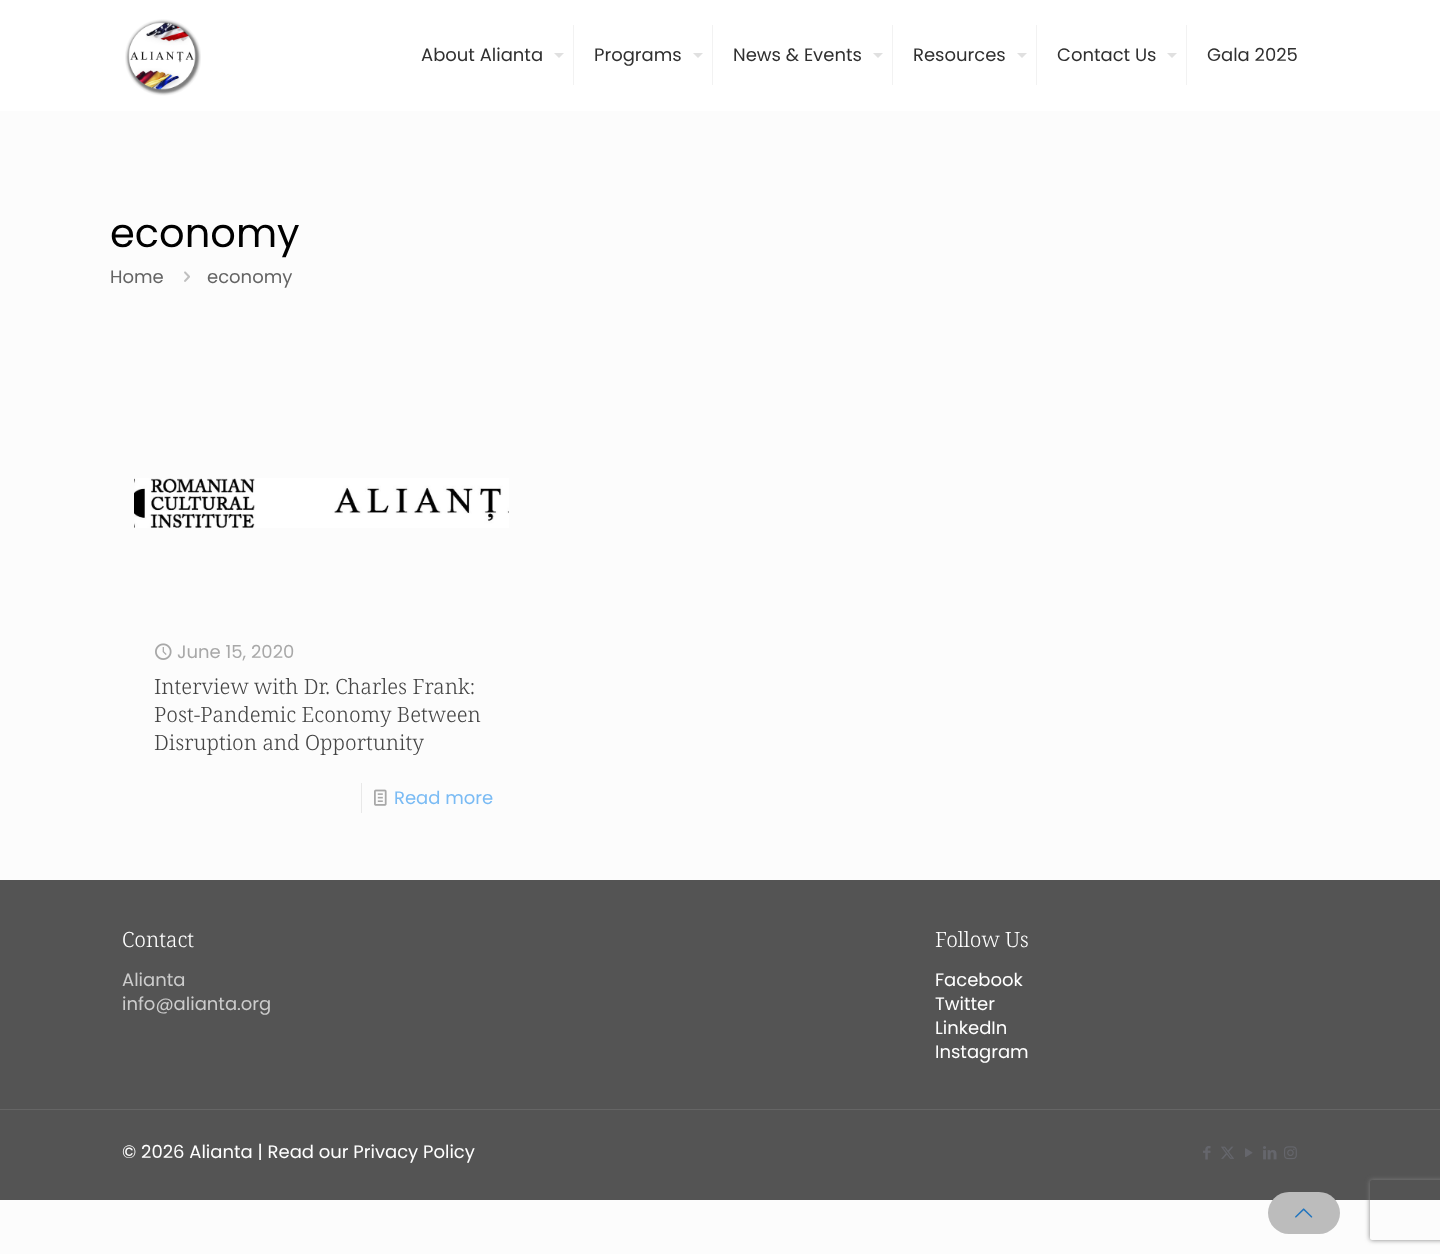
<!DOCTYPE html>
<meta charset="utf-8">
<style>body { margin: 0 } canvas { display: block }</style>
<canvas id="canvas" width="1440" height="1254"></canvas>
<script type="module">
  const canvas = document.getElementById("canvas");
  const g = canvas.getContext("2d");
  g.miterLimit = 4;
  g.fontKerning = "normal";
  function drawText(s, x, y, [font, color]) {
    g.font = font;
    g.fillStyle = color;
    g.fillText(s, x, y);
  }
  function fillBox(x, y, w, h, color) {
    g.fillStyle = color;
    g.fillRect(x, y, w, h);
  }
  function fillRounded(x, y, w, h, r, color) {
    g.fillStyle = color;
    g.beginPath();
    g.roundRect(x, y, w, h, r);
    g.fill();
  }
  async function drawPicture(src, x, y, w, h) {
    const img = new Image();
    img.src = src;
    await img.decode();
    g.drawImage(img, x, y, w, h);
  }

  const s1 = ["18px Poppins", "#303030"];
  const s2 = ["40px Poppins", "#000000"];
  const s3 = ["18px Poppins", "#646464"];
  const s4 = ["18px Poppins", "#A8A8A8"];
  const s5 = ["300 21px Noto Serif", "#444444"];
  const s6 = ["18px Poppins", "#7ABBF4"];
  const s7 = ["300 21px Noto Serif", "#FFFFFF"];
  const s8 = ["18px Poppins", "#CCCCCC"];
  const s9 = ["18px Poppins", "#FFFFFF"];

  fillBox(0, 0, 1440, 1254, "#FCFCFC");
  fillBox(0, 0, 1440, 111, "#FFFFFF");
  await drawPicture("pic1.png", 125, 19, 76, 77);
  fillBox(573, 25, 1, 60, "#F2F2F2");
  drawText("About Alianta", 421, 61, s1);
  g.fillStyle = "#E0E0E0";
  g.beginPath();
  g.moveTo(554, 53);
  g.lineTo(564, 53);
  g.lineTo(559, 58);
  g.closePath();
  g.fill();
  fillBox(712, 25, 1, 60, "#F2F2F2");
  drawText("Programs", 594, 61, s1);
  g.fillStyle = "#E0E0E0";
  g.beginPath();
  g.moveTo(693, 53);
  g.lineTo(703, 53);
  g.lineTo(698, 58);
  g.closePath();
  g.fill();
  fillBox(892, 25, 1, 60, "#F2F2F2");
  drawText("News & Events", 733, 61, s1);
  g.fillStyle = "#E0E0E0";
  g.beginPath();
  g.moveTo(873, 53);
  g.lineTo(883, 53);
  g.lineTo(878, 58);
  g.closePath();
  g.fill();
  fillBox(1036, 25, 1, 60, "#F2F2F2");
  drawText("Resources", 913, 61, s1);
  g.fillStyle = "#E0E0E0";
  g.beginPath();
  g.moveTo(1017, 53);
  g.lineTo(1027, 53);
  g.lineTo(1022, 58);
  g.closePath();
  g.fill();
  fillBox(1186, 25, 1, 60, "#F2F2F2");
  drawText("Contact Us", 1057, 61, s1);
  g.fillStyle = "#E0E0E0";
  g.beginPath();
  g.moveTo(1167, 53);
  g.lineTo(1177, 53);
  g.lineTo(1172, 58);
  g.closePath();
  g.fill();
  drawText("Gala 2025", 1207, 61, s1);
  drawText("economy", 110, 247, s2);
  drawText("Home", 110, 283, s3);
  await drawPicture("pic2.png", 184, 271, 6, 11);
  drawText("economy", 207, 283, s3);
  await drawPicture("pic3.png", 134, 478, 375, 50);
  await drawPicture("pic4.png", 155, 643, 17, 17);
  drawText("June 15, 2020", 177, 658, s4);
  drawText("Interview with Dr. Charles Frank:", 154, 694, s5);
  drawText("Post-Pandemic Economy Between", 154, 722, s5);
  drawText("Disruption and Opportunity", 154, 750, s5);
  fillBox(361, 783, 1, 30, "#E8E8E8");
  await drawPicture("pic5.png", 374, 789, 13, 17);
  drawText("Read more", 394, 804, s6);
  fillBox(0, 880, 1440, 320, "#545454");
  drawText("Contact", 122, 947, s7);
  drawText("Alianta", 122, 986, s8);
  drawText("info@alianta.org", 122, 1010, s8);
  drawText("Follow Us", 935, 947, s7);
  drawText("Facebook", 935, 986, s9);
  drawText("Twitter", 935, 1010, s9);
  drawText("LinkedIn", 935, 1034, s9);
  drawText("Instagram", 935, 1058, s9);
  fillBox(0, 1109, 1440, 1, "#656565");
  drawText("© 2026 Alianta | Read our Privacy Policy", 122, 1158, s9);
  await drawPicture("pic6.png", 1203, 1146, 8, 14);
  await drawPicture("pic7.png", 1221, 1146, 13, 13);
  await drawPicture("pic8.png", 1245, 1148, 8, 9);
  await drawPicture("pic9.png", 1263, 1146, 14, 14);
  await drawPicture("pic10.png", 1284, 1146, 13, 14);
  fillRounded(1268, 1192, 72, 42, 21, "#BCBCBC");
  await drawPicture("pic11.png", 1295, 1208, 18, 10);
  g.save();
  g.beginPath();
  g.moveTo(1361, 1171);
  g.lineTo(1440, 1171);
  g.lineTo(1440, 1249);
  g.lineTo(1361, 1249);
  g.closePath();
  g.moveTo(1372, 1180);
  g.lineTo(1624, 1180);
  g.bezierCurveTo(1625, 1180, 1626, 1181, 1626, 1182);
  g.lineTo(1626, 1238);
  g.bezierCurveTo(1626, 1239, 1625, 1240, 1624, 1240);
  g.lineTo(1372, 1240);
  g.bezierCurveTo(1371, 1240, 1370, 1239, 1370, 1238);
  g.lineTo(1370, 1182);
  g.bezierCurveTo(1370, 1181, 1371, 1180, 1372, 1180);
  g.closePath();
  g.clip("evenodd");
  g.fillStyle = "#808080";
  g.filter = "blur(2.5px)";
  g.beginPath();
  g.roundRect(1370, 1180, 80, 60, 2);
  g.fill();
  g.filter = "none";
  g.restore();
</script>
